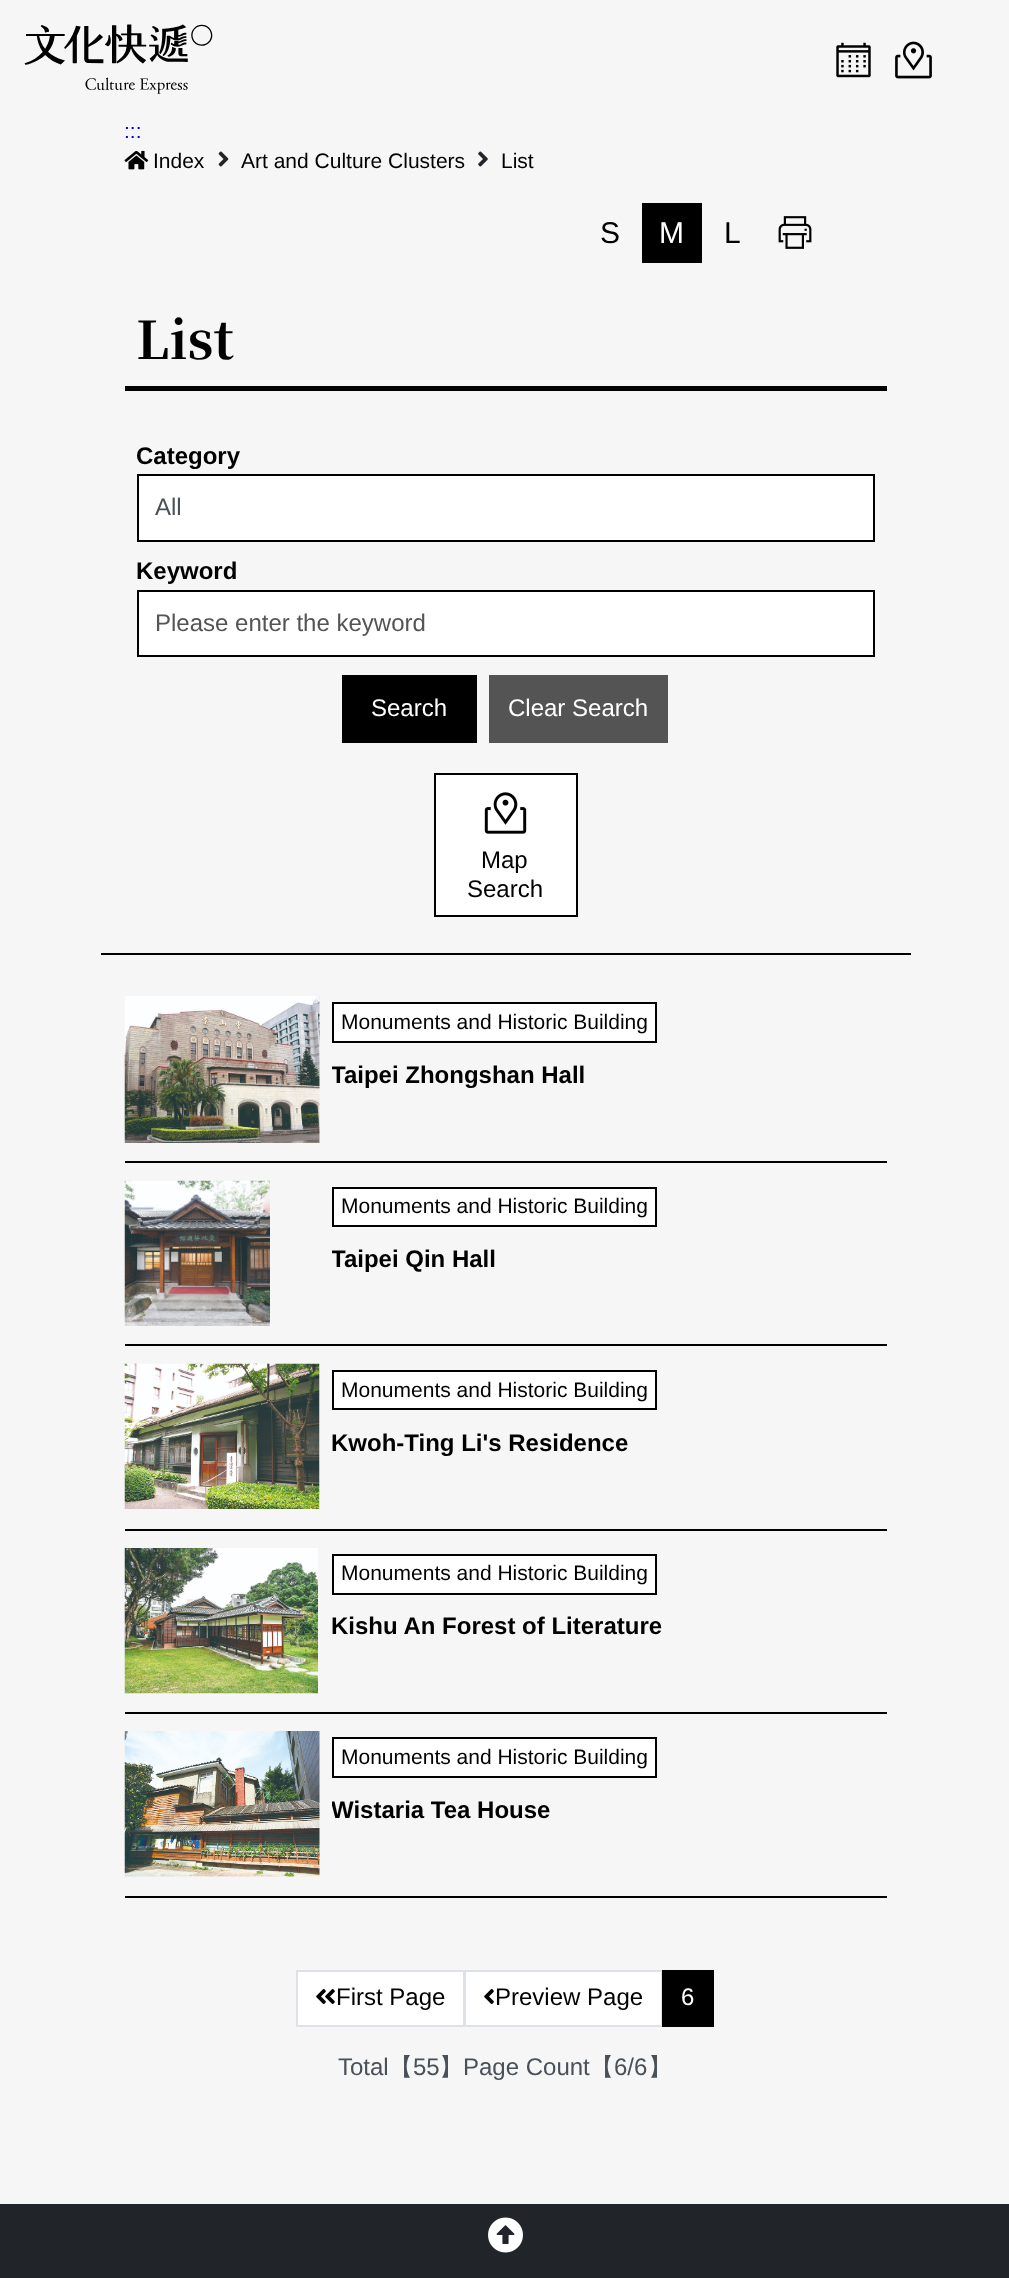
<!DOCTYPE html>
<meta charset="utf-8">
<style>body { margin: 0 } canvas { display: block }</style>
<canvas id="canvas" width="1009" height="2278"></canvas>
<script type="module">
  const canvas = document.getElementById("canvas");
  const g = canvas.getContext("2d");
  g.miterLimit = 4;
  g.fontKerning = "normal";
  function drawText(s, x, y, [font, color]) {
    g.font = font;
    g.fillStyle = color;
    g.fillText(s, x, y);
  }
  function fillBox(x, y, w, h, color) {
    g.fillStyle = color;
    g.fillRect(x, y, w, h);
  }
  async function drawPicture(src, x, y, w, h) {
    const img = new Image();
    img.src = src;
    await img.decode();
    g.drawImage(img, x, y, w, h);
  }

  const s1 = ["21px Liberation Sans", "#0000EE"];
  const s2 = ["21px Liberation Sans", "#000000"];
  const s3 = ["30px Liberation Sans", "#000000"];
  const s4 = ["30px Liberation Sans", "#FFFFFF"];
  const s5 = ["bold 52px Noto Serif TC", "#000000"];
  const s6 = ["bold 24px Liberation Sans", "#000000"];
  const s7 = ["24px Liberation Sans", "#495057"];
  const s8 = ["24px Liberation Sans", "#545454"];
  const s9 = ["24px Liberation Sans", "#FFFFFF"];
  const s10 = ["24px Liberation Sans", "#000000"];
  const s11 = ["500 24px WenQuanYi Zen Hei", "#495057"];

  fillBox(0, 0, 1009, 2278, "#F6F6F6");
  await drawPicture("pic1.png", 24, 24, 189, 70);
  await drawPicture("pic2.png", 836, 42, 35, 36);
  await drawPicture("pic3.png", 895, 41, 37, 38);
  drawText(":::", 124, 138, s1);
  await drawPicture("pic4.png", 124, 150, 25, 20);
  drawText("Index", 153, 168, s2);
  await drawPicture("pic5.png", 218, 151, 11, 16);
  drawText("Art and Culture Clusters", 241, 168, s2);
  await drawPicture("pic6.png", 478, 151, 10, 16);
  drawText("List", 501, 168, s2);
  drawText("S", 600, 243, s3);
  fillBox(642, 203, 60, 60, "#000000");
  drawText("M", 659, 243, s4);
  drawText("L", 724, 243, s3);
  await drawPicture("pic7.png", 778, 216, 34, 33);
  fillBox(125, 386, 762, 5, "#000000");
  drawText("List", 136, 359, s5);
  drawText("Category", 136, 464, s6);
  g.fillStyle = "#FFFFFF";
  g.beginPath();
  g.rect(138, 475, 736, 66);
  g.fill();
  g.strokeStyle = "#000000";
  g.lineWidth = 2;
  g.stroke();
  drawText("All", 155, 515, s7);
  drawText("Keyword", 136, 579, s6);
  g.fillStyle = "#FFFFFF";
  g.beginPath();
  g.rect(138, 591, 736, 65);
  g.fill();
  g.stroke();
  drawText("Please enter the keyword", 155, 631, s8);
  fillBox(342, 675, 135, 68, "#000000");
  drawText("Search", 371, 716, s9);
  fillBox(489, 675, 179, 68, "#545454");
  drawText("Clear Search", 508, 716, s9);
  g.beginPath();
  g.rect(435, 774, 142, 142);
  g.fill();
  g.stroke();
  await drawPicture("pic8.png", 484, 792, 43, 42);
  drawText("Map", 481, 868, s10);
  drawText("Search", 467, 897, s10);
  fillBox(101, 953, 810, 2, "#000000");
  fillBox(125, 1161, 762, 2, "#000000");
  await drawPicture("pic9.png", 124, 996, 196, 147);
  g.fillStyle = "#FFFFFF";
  g.beginPath();
  g.rect(333, 1003, 323, 39);
  g.fill();
  g.stroke();
  drawText("Monuments and Historic Building", 341, 1029, s2);
  g.save();
  g.beginPath();
  g.rect(332, 1061, 555, 28);
  g.clip();
  drawText("Taipei Zhongshan Hall", 331, 1083, s6);
  g.restore();
  fillBox(125, 1344, 762, 2, "#000000");
  await drawPicture("pic10.png", 124, 1180, 146, 146);
  g.fillStyle = "#FFFFFF";
  g.beginPath();
  g.rect(333, 1188, 323, 38);
  g.fill();
  g.stroke();
  drawText("Monuments and Historic Building", 341, 1213, s2);
  g.save();
  g.beginPath();
  g.rect(332, 1245, 555, 29);
  g.clip();
  drawText("Taipei Qin Hall", 331, 1267, s6);
  g.restore();
  fillBox(125, 1529, 762, 2, "#000000");
  await drawPicture("pic11.png", 124, 1363, 196, 146);
  g.fillStyle = "#FFFFFF";
  g.beginPath();
  g.rect(333, 1371, 323, 38);
  g.fill();
  g.stroke();
  drawText("Monuments and Historic Building", 341, 1397, s2);
  drawText("Kwoh-Ting Li's Residence", 331, 1451, s6);
  fillBox(125, 1712, 762, 2, "#000000");
  await drawPicture("pic12.png", 124, 1548, 194, 146);
  g.fillStyle = "#FFFFFF";
  g.beginPath();
  g.rect(333, 1555, 323, 39);
  g.fill();
  g.stroke();
  drawText("Monuments and Historic Building", 341, 1580, s2);
  drawText("Kishu An Forest of Literature", 331, 1634, s6);
  fillBox(125, 1896, 762, 2, "#000000");
  await drawPicture("pic13.png", 124, 1731, 196, 146);
  g.fillStyle = "#FFFFFF";
  g.beginPath();
  g.rect(333, 1738, 323, 39);
  g.fill();
  g.stroke();
  drawText("Monuments and Historic Building", 341, 1764, s2);
  g.save();
  g.beginPath();
  g.rect(332, 1796, 555, 28);
  g.clip();
  drawText("Wistaria Tea House", 331, 1818, s6);
  g.restore();
  g.fillStyle = "#FFFFFF";
  g.beginPath();
  g.rect(297, 1971, 167, 55);
  g.fill();
  g.strokeStyle = "#DEE2E6";
  g.stroke();
  await drawPicture("pic14.png", 316, 1989, 19, 15);
  drawText("First Page", 336, 2005, s10);
  g.fillStyle = "#FFFFFF";
  g.beginPath();
  g.rect(465, 1971, 197, 55);
  g.fill();
  g.stroke();
  await drawPicture("pic15.png", 484, 1989, 10, 15);
  drawText("Preview Page", 495, 2005, s10);
  fillBox(662, 1970, 52, 57, "#000000");
  drawText("6", 681, 2005, s9);
  drawText("Total", 338, 2075, s7);
  drawText("【", 389, 2075, s11);
  drawText("55", 413, 2075, s7);
  drawText("】", 439, 2075, s11);
  drawText("Page Count", 463, 2075, s7);
  drawText("【", 590, 2075, s11);
  drawText("6/6", 614, 2075, s7);
  drawText("】", 648, 2075, s11);
  fillBox(0, 2204, 1009, 74, "#212529");
  await drawPicture("pic16.png", 488, 2217, 35, 36);
</script>
